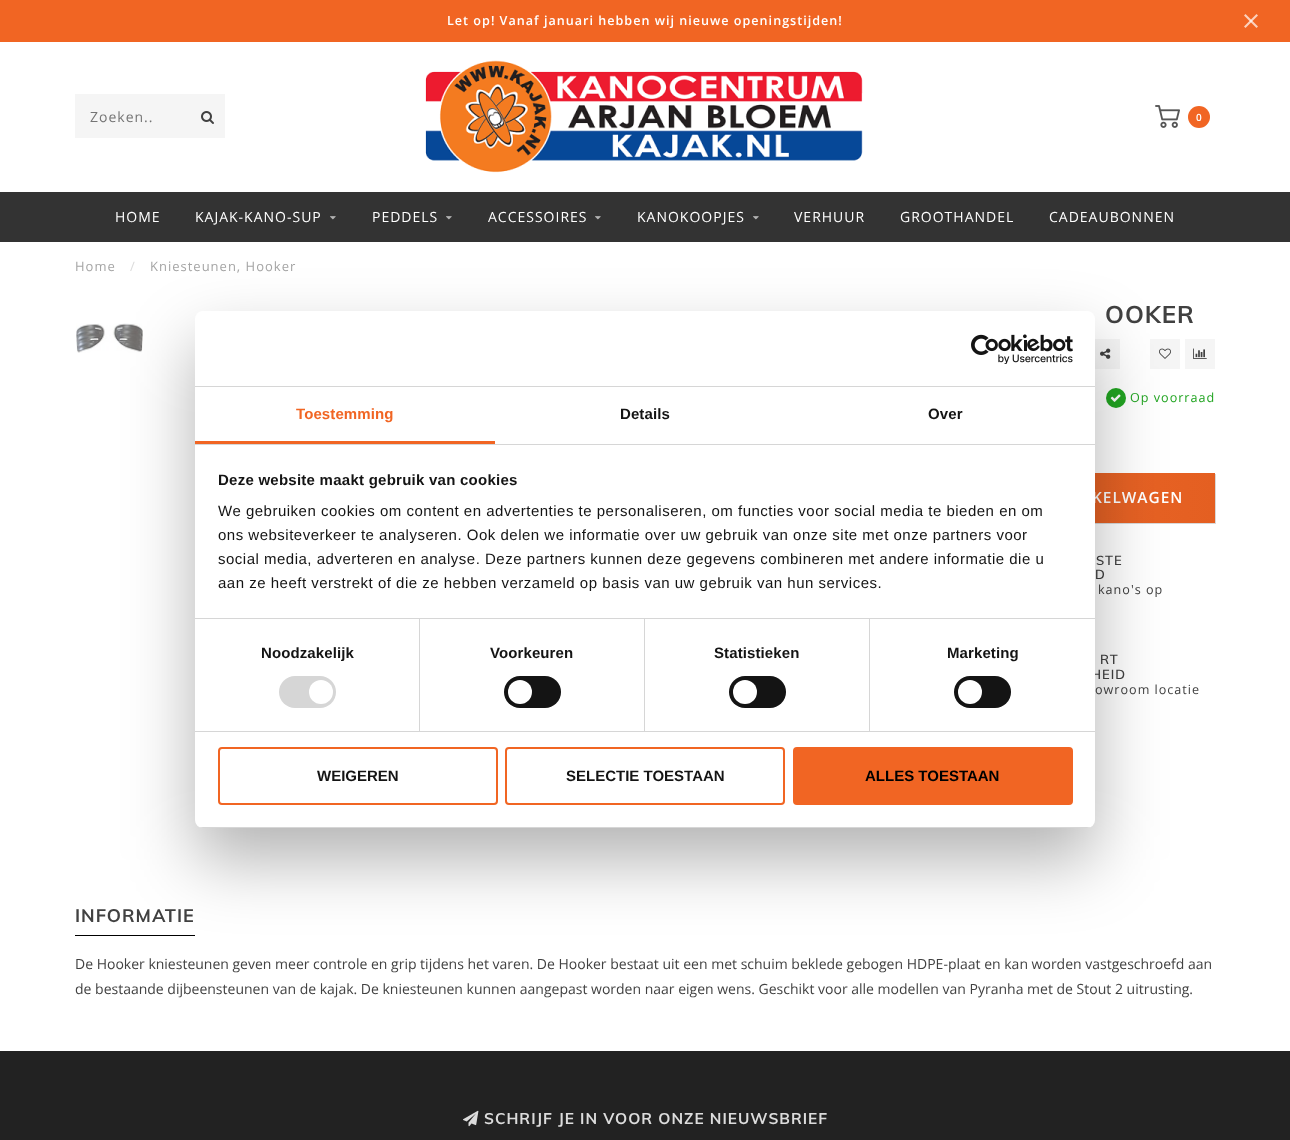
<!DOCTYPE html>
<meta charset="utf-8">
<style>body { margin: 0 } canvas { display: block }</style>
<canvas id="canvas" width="1290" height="1140"></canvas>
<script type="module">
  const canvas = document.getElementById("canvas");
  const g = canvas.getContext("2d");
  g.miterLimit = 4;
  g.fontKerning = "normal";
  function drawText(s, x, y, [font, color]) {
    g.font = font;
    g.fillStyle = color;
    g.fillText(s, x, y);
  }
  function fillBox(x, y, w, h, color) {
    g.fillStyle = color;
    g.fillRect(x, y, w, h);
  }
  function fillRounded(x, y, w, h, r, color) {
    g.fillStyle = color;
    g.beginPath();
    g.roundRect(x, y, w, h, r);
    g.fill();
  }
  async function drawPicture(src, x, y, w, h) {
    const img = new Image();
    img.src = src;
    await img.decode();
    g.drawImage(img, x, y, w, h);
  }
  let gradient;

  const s1 = ["600 12.6px Open Sans", "#FFFFFF"];
  const s2 = ["14px Open Sans", "#757575"];
  const s3 = ["600 10px Open Sans", "#FFFFFF"];
  const s4 = ["14px Open Sans", "#FFFFFF"];
  const s5 = ["13px Open Sans", "#A5A5A5"];
  const s6 = ["13px Open Sans", "#DCDCDC"];
  const s7 = ["bold 24px Muli", "#414141"];
  const s8 = ["12.6px Open Sans", "#22A522"];
  const s9 = ["600 15.4px Open Sans", "#FFFFFF"];
  const s10 = ["600 13px Muli", "#414141"];
  const s11 = ["12.6px Open Sans", "#414141"];
  const s12 = ["bold 18px Muli", "#414141"];
  const s13 = ["14px Open Sans", "#414141"];
  const s14 = ["bold 15.4px Muli", "#DCDCDC"];
  const s15 = ["bold 15px Liberation Sans", "#F16523"];
  const s16 = ["bold 15px Liberation Sans", "#141414"];
  const s17 = ["15px Liberation Sans", "#141414"];
  const s18 = ["bold 15px Liberation Sans", "#000000"];

  fillBox(0, 0, 1290, 1140, "#FFFFFF");
  fillBox(0, 0, 1290, 42, "#F16523");
  g.letterSpacing = "1px";
  drawText("Let op! Vanaf januari hebben wij nieuwe openingstijden!", 447, 25, s1);
  g.fillStyle = "#FBD1BD";
  g.beginPath();
  g.moveTo(1245.5, 14);
  g.lineTo(1258, 26.5);
  g.lineTo(1256.5, 28);
  g.lineTo(1244, 15.5);
  g.closePath();
  g.fill();
  g.fillStyle = "rgba(255, 255, 255, 0.7)";
  g.beginPath();
  g.moveTo(1244, 26.5);
  g.lineTo(1256.5, 14);
  g.lineTo(1258, 15.5);
  g.lineTo(1245.5, 28);
  g.closePath();
  g.fill();
  fillBox(75, 94, 150, 44, "#F5F5F5");
  drawText("Zoeken..", 90, 122, s2);
  await drawPicture("pic1.png", 201, 111, 13, 13);
  await drawPicture("pic2.png", 425, 60, 438, 113);
  await drawPicture("pic3.png", 1155, 105, 25, 23);
  g.fillStyle = "#F16523";
  g.beginPath();
  g.arc(1199, 117, 11, 0, Math.PI * 2);
  g.fill();
  drawText("0", 1196, 121, s3);
  fillBox(0, 192, 1290, 50, "#333333");
  drawText("HOME", 115, 222, s4);
  drawText("KAJAK-KANO-SUP", 195, 222, s4);
  await drawPicture("pic4.png", 330, 216, 6, 4);
  drawText("PEDDELS", 372, 222, s4);
  await drawPicture("pic4.png", 446, 216, 6, 4);
  drawText("ACCESSOIRES", 488, 222, s4);
  await drawPicture("pic4.png", 595, 216, 6, 4);
  drawText("KANOKOOPJES", 637, 222, s4);
  await drawPicture("pic4.png", 753, 216, 6, 4);
  drawText("VERHUUR", 794, 222, s4);
  drawText("GROOTHANDEL", 900, 222, s4);
  drawText("CADEAUBONNEN", 1049, 222, s4);
  drawText("Home", 75, 271, s5);
  drawText("/", 130, 271, s6);
  drawText("Kniesteunen, Hooker", 150, 271, s5);
  await drawPicture("pic5.png", 76, 323, 67, 30);
  drawText("OOKER", 1105, 323, s7);
  fillBox(1095, 339, 25, 30, "#F5F5F5");
  await drawPicture("pic6.png", 1100, 348, 11, 11);
  fillBox(1150, 339, 30, 30, "#F5F5F5");
  await drawPicture("pic7.png", 1159, 348, 12, 11);
  fillBox(1185, 339, 30, 30, "#F5F5F5");
  await drawPicture("pic8.png", 1193, 348, 14, 11);
  g.fillStyle = "#22A522";
  g.beginPath();
  g.arc(1116, 398, 10, 0, Math.PI * 2);
  g.fill();
  await drawPicture("pic9.png", 1110, 394, 11, 8);
  drawText("Op voorraad", 1130, 402, s8);
  g.fillStyle = "rgba(0, 0, 0, 0.15)";
  g.filter = "blur(0.5px)";
  g.beginPath();
  g.rect(851, 474, 365, 50);
  g.fill();
  g.filter = "none";
  gradient = g.createLinearGradient(850, 498, 1215, 498);
  gradient.addColorStop(0, "#F16C2E");
  gradient.addColorStop(1, "#E45F21");
  g.fillStyle = gradient;
  g.fillRect(1095, 473, 120, 50);
  drawText("KELWAGEN", 1092, 503, s9);
  drawText("STE", 1096, 565, s10);
  drawText("D", 1095, 579, s10);
  drawText("kano's op", 1098, 594, s11);
  drawText("RT", 1100, 664, s10);
  drawText("HEID", 1091, 679, s10);
  drawText("owroom locatie", 1095, 694, s11);
  fillBox(75, 935, 120, 1, "#000000");
  drawText("INFORMATIE", 75, 922, s12);
  g.letterSpacing = "0px";
  drawText("De Hooker kniesteunen geven meer controle en grip tijdens het varen. De Hooker bestaat uit een met schuim beklede gebogen HDPE-plaat en kan worden vastgeschroefd aan", 75, 969, s13);
  drawText("de bestaande dijbeensteunen van de kajak. De kniesteunen kunnen aangepast worden naar eigen wens. Geschikt voor alle modellen van Pyranha met de Stout 2 uitrusting.", 75, 994, s13);
  fillBox(0, 1051, 1290, 89, "#222222");
  await drawPicture("pic10.png", 463, 1110, 16, 17);
  g.letterSpacing = "1px";
  drawText("SCHRIJF JE IN VOOR ONZE NIEUWSBRIEF", 484, 1124, s14);
  g.fillStyle = "rgba(0, 0, 0, 0.3)";
  g.filter = "blur(34px)";
  g.beginPath();
  g.roundRect(195, 343, 900, 517, 8);
  g.fill();
  g.filter = "none";
  fillRounded(195, 311, 900, 517, 8, "#FFFFFF");
  fillBox(195, 386, 900, 1, "#D6D6D6");
  await drawPicture("pic11.png", 971, 334, 102, 30);
  fillBox(195, 444, 900, 1, "#D6D6D6");
  fillBox(195, 441, 300, 3, "#F16523");
  g.letterSpacing = "0.1px";
  drawText("Toestemming", 296, 419, s15);
  drawText("Details", 620, 419, s16);
  drawText("Over", 928, 419, s16);
  fillBox(195, 618, 900, 1, "#D6D6D6");
  g.letterSpacing = "0.25px";
  drawText("Deze website maakt gebruik van cookies", 218, 485, s16);
  g.letterSpacing = "0.5px";
  drawText("We gebruiken cookies om content en advertenties te personaliseren, om functies voor social media te bieden en om", 218, 516, s17);
  drawText("ons websiteverkeer te analyseren. Ook delen we informatie over uw gebruik van onze site met onze partners voor", 218, 540, s17);
  drawText("social media, adverteren en analyse. Deze partners kunnen deze gegevens combineren met andere informatie die u", 218, 564, s17);
  drawText("aan ze heeft verstrekt of die ze hebben verzameld op basis van uw gebruik van hun services.", 218, 588, s17);
  fillBox(195, 731, 900, 1, "#D6D6D6");
  fillBox(419, 619, 1, 112, "#D6D6D6");
  g.letterSpacing = "0.1px";
  drawText("Noodzakelijk", 261, 658, s16);
  fillRounded(279, 676, 57, 32, 16, "#D6D6D6");
  g.fillStyle = "#FFFFFF";
  g.beginPath();
  g.arc(321, 692, 12, 0, Math.PI * 2);
  g.fill();
  fillBox(644, 619, 1, 112, "#D6D6D6");
  drawText("Voorkeuren", 490, 658, s16);
  fillRounded(504, 676, 57, 32, 16, "#141414");
  g.fillStyle = "#FFFFFF";
  g.beginPath();
  g.arc(520, 692, 12, 0, Math.PI * 2);
  g.fill();
  fillBox(869, 619, 1, 112, "#D6D6D6");
  drawText("Statistieken", 714, 658, s16);
  fillRounded(729, 676, 57, 32, 16, "#141414");
  g.fillStyle = "#FFFFFF";
  g.beginPath();
  g.arc(745, 692, 12, 0, Math.PI * 2);
  g.fill();
  drawText("Marketing", 947, 658, s16);
  fillRounded(954, 676, 57, 32, 16, "#141414");
  g.fillStyle = "#FFFFFF";
  g.beginPath();
  g.arc(970, 692, 12, 0, Math.PI * 2);
  g.fill();
  g.save();
  g.beginPath();
  g.roundRect(195, 311, 900, 517, 8);
  g.clip();
  fillBox(195, 827, 900, 1, "#D6D6D6");
  g.restore();
  g.beginPath();
  g.roundRect(219, 748, 278, 56, 3);
  g.strokeStyle = "#F16523";
  g.lineWidth = 2;
  g.stroke();
  g.letterSpacing = "0px";
  drawText("WEIGEREN", 317, 781, s16);
  g.beginPath();
  g.roundRect(506, 748, 278, 56, 3);
  g.stroke();
  drawText("SELECTIE TOESTAAN", 566, 781, s16);
  g.fillStyle = "#F16523";
  g.beginPath();
  g.roundRect(794, 748, 278, 56, 3);
  g.fill();
  g.stroke();
  drawText("ALLES TOESTAAN", 865, 781, s18);
</script>
